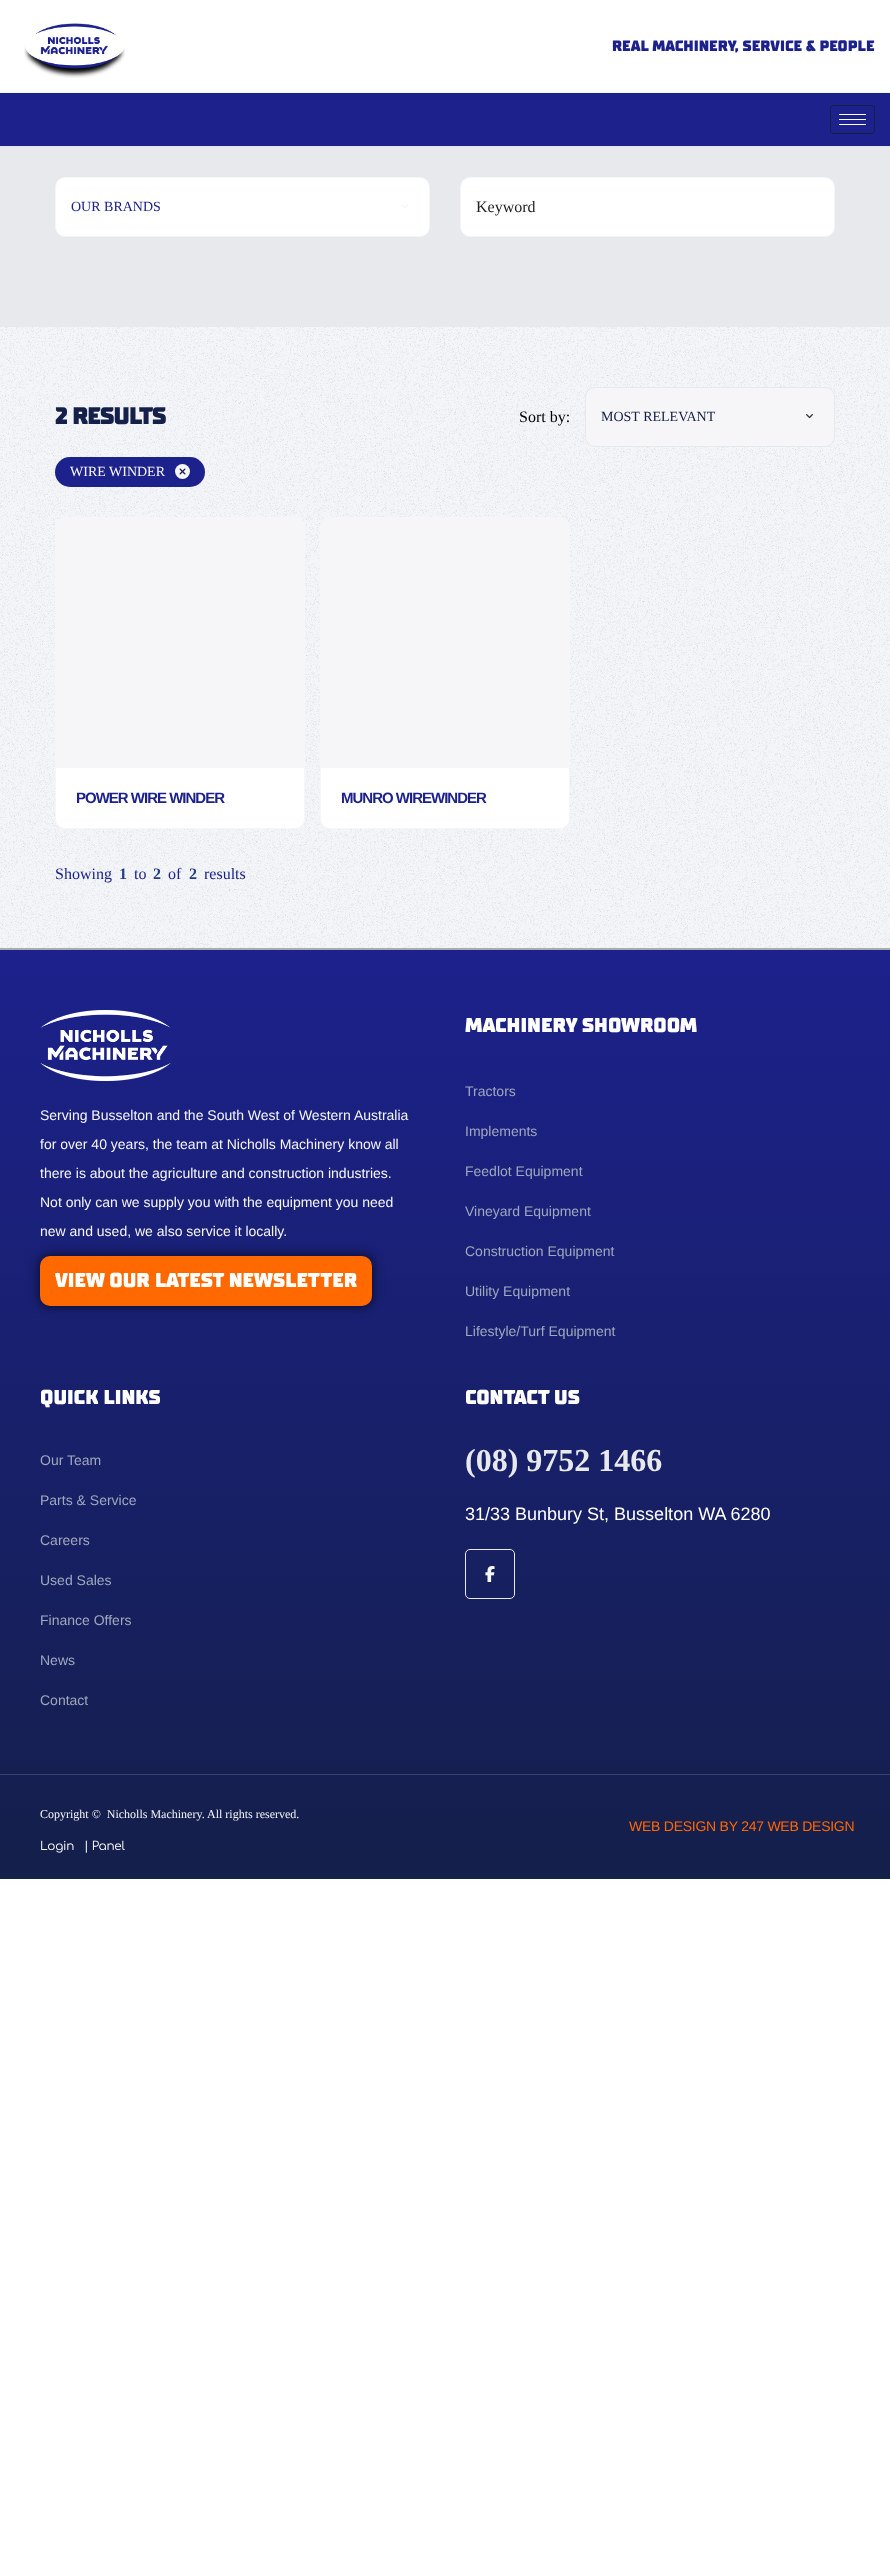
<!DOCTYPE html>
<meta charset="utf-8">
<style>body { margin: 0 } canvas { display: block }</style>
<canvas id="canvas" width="890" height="2559"></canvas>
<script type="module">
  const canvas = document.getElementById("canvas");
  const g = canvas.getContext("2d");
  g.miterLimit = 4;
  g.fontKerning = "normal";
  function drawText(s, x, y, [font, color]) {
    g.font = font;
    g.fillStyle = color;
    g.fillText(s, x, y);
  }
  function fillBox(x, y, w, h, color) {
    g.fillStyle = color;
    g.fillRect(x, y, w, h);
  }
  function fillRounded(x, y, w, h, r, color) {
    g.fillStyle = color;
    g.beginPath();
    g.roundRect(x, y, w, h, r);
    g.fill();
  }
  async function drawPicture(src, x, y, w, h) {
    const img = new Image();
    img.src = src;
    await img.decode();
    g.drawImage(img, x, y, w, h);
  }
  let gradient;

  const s1 = ["900 15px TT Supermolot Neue", "#1C218C"];
  const s2 = ["14px Liberation Serif", "#1C218C"];
  const s3 = ["16px Liberation Serif", "#222222"];
  const s4 = ["900 24px TT Supermolot Neue", "#141F4A"];
  const s5 = ["16px Liberation Serif", "#000000"];
  const s6 = ["14px Liberation Serif", "#141F4A"];
  const s7 = ["14px Liberation Serif", "#F6F6F8"];
  const s8 = ["bold 15px Liberation Sans", "#1C218C"];
  const s9 = ["16px Liberation Serif", "#1C218C"];
  const s10 = ["bold 16px Liberation Serif", "#223E86"];
  const s11 = ["14px Liberation Sans", "#F6F6F8"];
  const s12 = ["900 20px TT Supermolot Neue", "#FFFFFF"];
  const s13 = ["14px Liberation Sans", "#A0A8BD"];
  const s14 = ["bold 32px Liberation Serif", "#E7E9EC"];
  const s15 = ["18px Liberation Sans", "#FFFFFF"];
  const s16 = ["12px Liberation Serif", "#F6F6F8"];
  const s17 = ["12px Comfortaa", "#FFFFFF"];
  const s18 = ["14px Liberation Sans", "#FF6900"];

  fillBox(0, 0, 890, 2559, "#FFFFFF");
  fillBox(0, 92, 890, 1, "#F5F6F8");
  await drawPicture("pic1.png", 24, 23, 101, 55);
  drawText("REAL MACHINERY, SERVICE & PEOPLE", 612, 51, s1);
  fillBox(0, 93, 890, 53, "#1C218C");
  fillBox(0, 146, 890, 1, "#E4E4F1");
  g.beginPath();
  g.roundRect(830.5, 105.5, 44, 28, 2.5);
  g.strokeStyle = "#141F4A";
  g.stroke();
  fillBox(839, 114, 27, 1, "#FFFFFF");
  fillBox(839, 119, 27, 1, "#FFFFFF");
  fillBox(839, 124, 27, 1, "#FFFFFF");
  fillBox(0, 327, 890, 621, "#F4F5F8");
  fillBox(0, 147, 890, 180, "#E7E9EC");
  g.fillStyle = "#FFFFFF";
  g.beginPath();
  g.roundRect(55.5, 177.5, 374, 59, 9.5);
  g.fill();
  g.strokeStyle = "#F4F5F8";
  g.stroke();
  drawText("OUR BRANDS", 71, 211, s2);
  await drawPicture("pic2.png", 401, 204, 7, 4);
  g.fillStyle = "#FFFFFF";
  g.beginPath();
  g.roundRect(460.5, 177.5, 374, 59, 9.5);
  g.fill();
  g.stroke();
  drawText("Keyword", 476, 212, s3);
  await drawPicture("pic5.png", 0, 327, 890, 621);
  g.letterSpacing = "-1px";
  drawText("2 RESULTS", 55, 424, s4);
  g.letterSpacing = "0px";
  drawText("Sort by:", 519, 422, s5);
  g.fillStyle = "#F6F6F8";
  g.beginPath();
  g.roundRect(585.5, 387.5, 249, 59, 9.5);
  g.fill();
  g.strokeStyle = "#E7E9EC";
  g.stroke();
  drawText("MOST RELEVANT", 601, 421, s6);
  await drawPicture("pic3.png", 806, 414, 7, 5);
  fillRounded(55, 457, 150, 30, 15, "#1C218C");
  drawText("WIRE WINDER", 70, 476, s7);
  g.beginPath();
  g.arc(182.5, 471.5, 7.5, 0, Math.PI * 2);
  g.fill();
  await drawPicture("pic4.png", 179, 468, 7, 7);
  g.beginPath();
  g.roundRect(55, 517, 250, 250, [10, 10, 0, 0]);
  g.fill();
  g.fillStyle = "#FFFFFF";
  g.beginPath();
  g.roundRect(55.5, 767.5, 249, 61, [0, 0, 9.5, 9.5]);
  g.fill();
  g.strokeStyle = "#F6F6F8";
  g.stroke();
  g.letterSpacing = "-1px";
  drawText("POWER WIRE WINDER", 76, 803, s8);
  g.fillStyle = "#F6F6F8";
  g.beginPath();
  g.roundRect(320, 517, 250, 250, [10, 10, 0, 0]);
  g.fill();
  g.fillStyle = "#FFFFFF";
  g.beginPath();
  g.roundRect(320.5, 767.5, 249, 61, [0, 0, 9.5, 9.5]);
  g.fill();
  g.stroke();
  drawText("MUNRO WIREWINDER", 341, 803, s8);
  g.letterSpacing = "0px";
  drawText("Showing", 55, 879, s9);
  drawText("1", 119, 879, s10);
  drawText("to", 134, 879, s9);
  drawText("2", 153, 879, s10);
  drawText("of", 168, 879, s9);
  drawText("2", 189, 879, s10);
  drawText("results", 204, 879, s9);
  gradient = g.createLinearGradient(445, 950, 445, 1879);
  gradient.addColorStop(0, "#1C218C");
  gradient.addColorStop(1, "#141F4A");
  g.fillStyle = gradient;
  g.fillRect(0, 950, 890, 929);
  fillBox(0, 948, 890, 2, "#AAAAAA");
  fillBox(0, 1774, 890, 1, "#38416B");
  await drawPicture("pic6.png", 40, 1010, 131, 71);
  drawText("Serving Busselton and the South West of Western Australia", 40, 1120, s11);
  drawText("for over 40 years, the team at Nicholls Machinery know all", 40, 1149, s11);
  drawText("there is about the agriculture and construction industries.", 40, 1178, s11);
  drawText("Not only can we supply you with the equipment you need", 40, 1207, s11);
  drawText("new and used, we also service it locally.", 40, 1236, s11);
  g.fillStyle = "rgba(0, 0, 0, 0.5)";
  g.filter = "blur(5px)";
  g.beginPath();
  g.roundRect(38, 1254, 336, 54, 12);
  g.fill();
  g.filter = "none";
  fillRounded(40, 1256, 332, 50, 10, "#FF6900");
  drawText("VIEW OUR LATEST NEWSLETTER", 55, 1287, s12);
  drawText("MACHINERY SHOWROOM", 465, 1032, s12);
  drawText("Tractors", 465, 1096, s13);
  drawText("Implements", 465, 1136, s13);
  drawText("Feedlot Equipment", 465, 1176, s13);
  drawText("Vineyard Equipment", 465, 1216, s13);
  drawText("Construction Equipment", 465, 1256, s13);
  drawText("Utility Equipment", 465, 1296, s13);
  drawText("Lifestyle/Turf Equipment", 465, 1336, s13);
  drawText("QUICK LINKS", 40, 1404, s12);
  drawText("Our Team", 40, 1465, s13);
  drawText("Parts & Service", 40, 1505, s13);
  drawText("Careers", 40, 1545, s13);
  drawText("Used Sales", 40, 1585, s13);
  drawText("Finance Offers", 40, 1625, s13);
  drawText("News", 40, 1665, s13);
  drawText("Contact", 40, 1705, s13);
  drawText("CONTACT US", 465, 1404, s12);
  drawText("(08) 9752 1466", 465, 1471, s14);
  drawText("31/33 Bunbury St, Busselton WA 6280", 465, 1520, s15);
  g.beginPath();
  g.roundRect(465.5, 1549.5, 49, 49, 4.5);
  g.strokeStyle = "#E7E9EC";
  g.stroke();
  await drawPicture("pic7.png", 485, 1566, 10, 16);
  drawText("Copyright ©  Nicholls Machinery. All rights reserved.", 40, 1818, s16);
  g.letterSpacing = "-0.25px";
  drawText("Login", 40, 1850, s17);
  drawText("| Panel", 84, 1850, s17);
  drawText("WEB DESIGN BY 247 WEB DESIGN", 629, 1831, s18);
</script>
